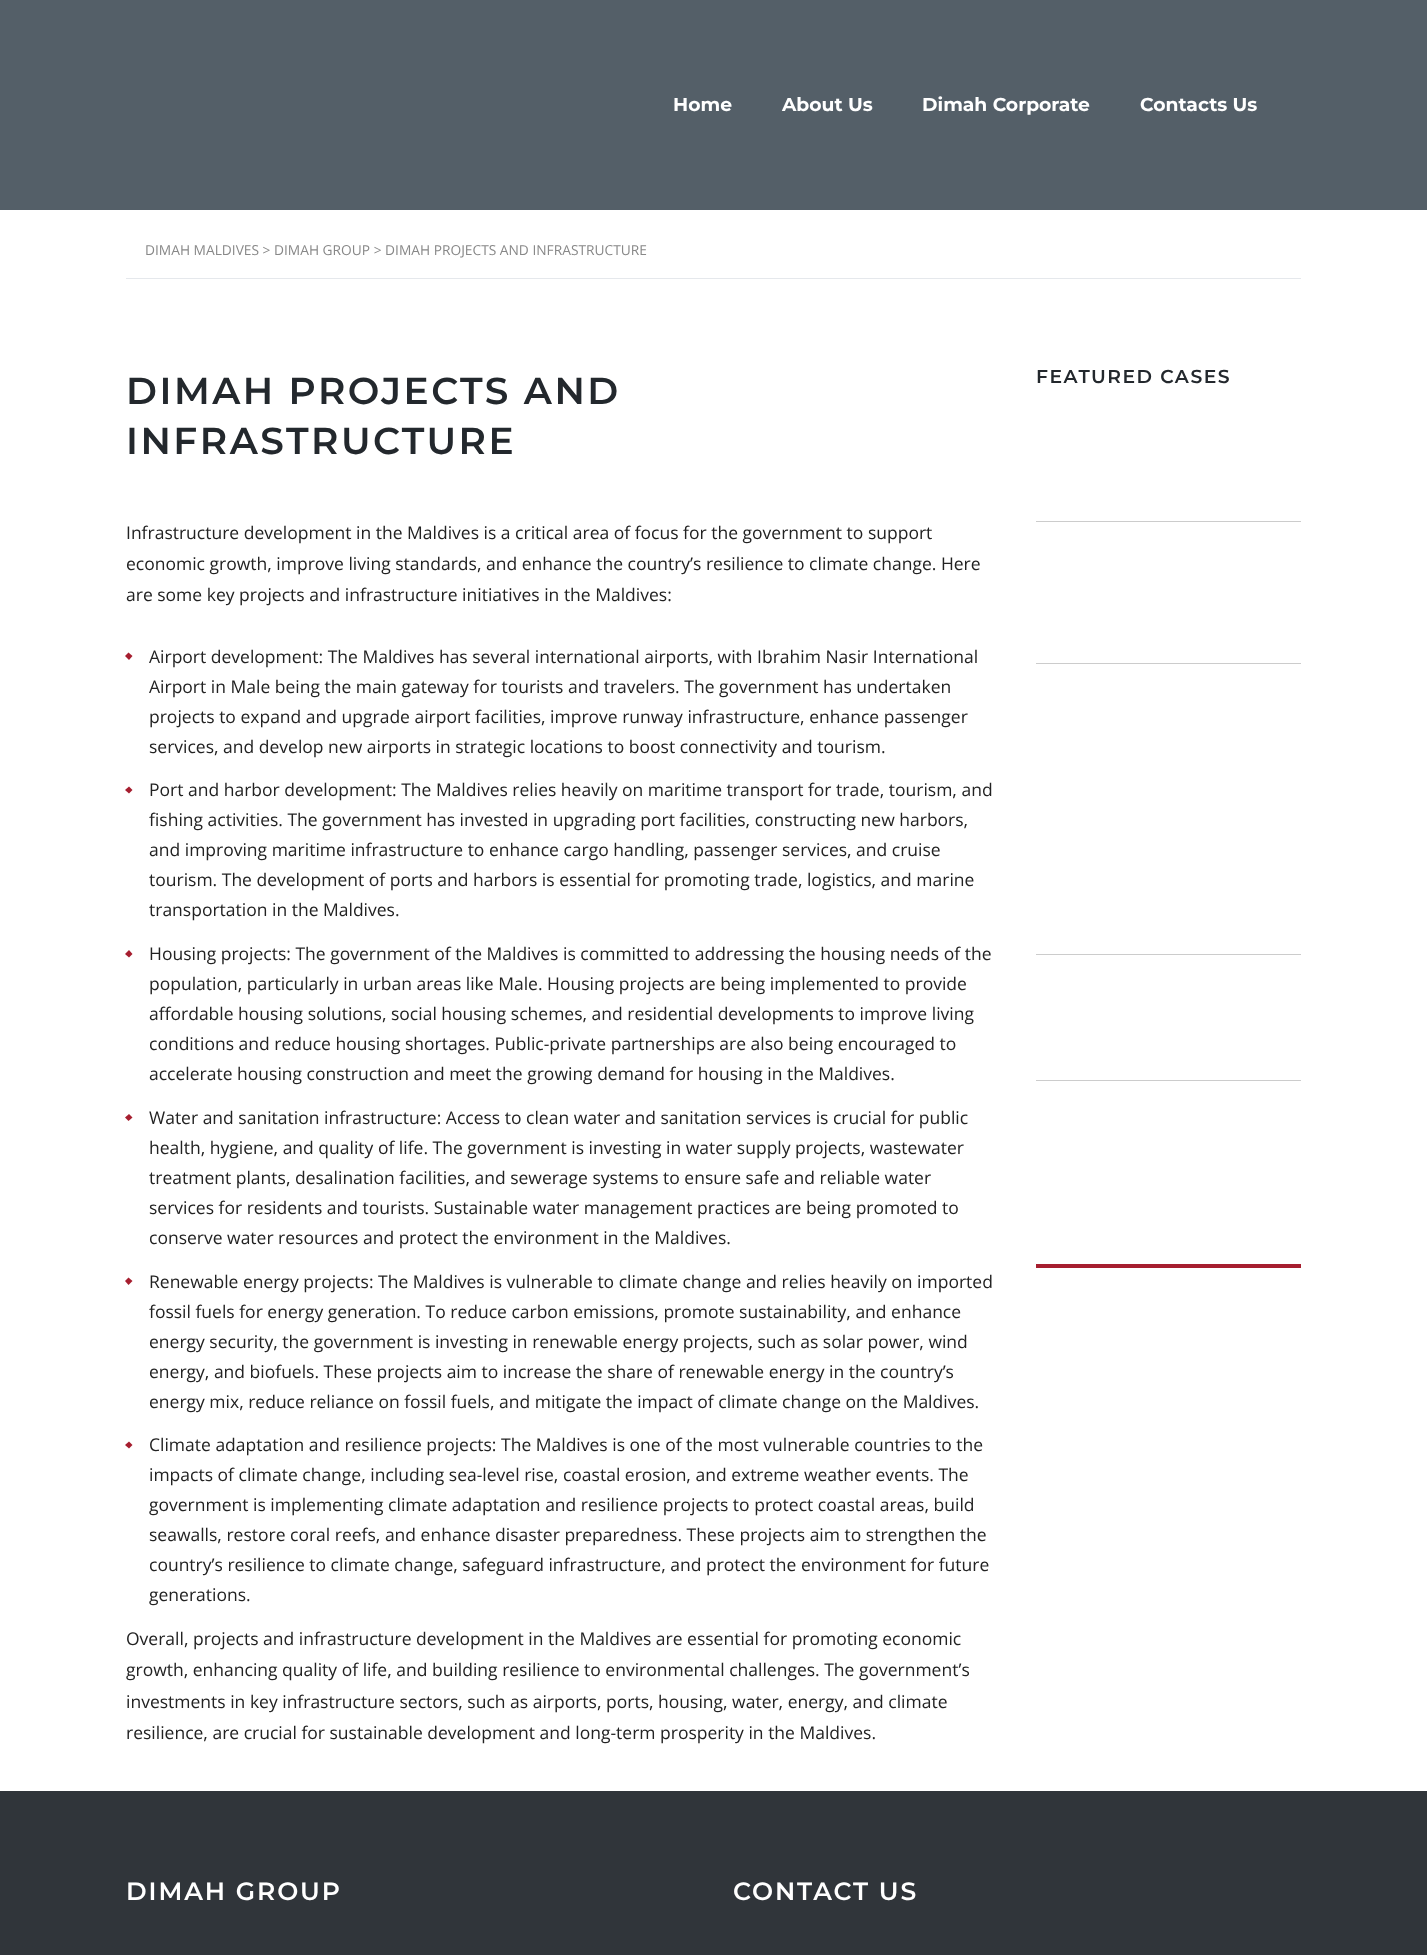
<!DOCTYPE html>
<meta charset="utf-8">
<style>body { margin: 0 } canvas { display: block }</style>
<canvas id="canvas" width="1427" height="1955"></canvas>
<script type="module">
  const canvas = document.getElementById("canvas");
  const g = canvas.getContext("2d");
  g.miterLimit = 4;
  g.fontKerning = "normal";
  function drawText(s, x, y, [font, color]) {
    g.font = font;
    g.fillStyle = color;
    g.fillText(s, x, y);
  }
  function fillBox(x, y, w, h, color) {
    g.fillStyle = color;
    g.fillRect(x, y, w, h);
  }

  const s1 = ["bold 18.75px Montserrat", "#FFFFFF"];
  const s2 = ["13.75px Open Sans", "#888888"];
  const s3 = ["600 37.5px Montserrat", "#23282D"];
  const s4 = ["17.5px Open Sans", "#222222"];
  const s5 = ["600 18.75px Montserrat", "#23282D"];
  const s6 = ["600 25px Montserrat", "#FFFFFF"];

  fillBox(0, 0, 1427, 1955, "#FFFFFF");
  fillBox(0, 0, 1427, 210, "#545F68");
  drawText("Home", 673, 111, s1);
  drawText("About Us", 782, 111, s1);
  drawText("Dimah Corporate", 922, 111, s1);
  drawText("Contacts Us", 1140, 111, s1);
  fillBox(126, 278, 1175, 1, "#E5E8EC");
  drawText("DIMAH MALDIVES > DIMAH GROUP > DIMAH PROJECTS AND INFRASTRUCTURE", 145, 255, s2);
  g.letterSpacing = "2.5px";
  drawText("DIMAH PROJECTS AND", 126, 404, s3);
  drawText("INFRASTRUCTURE", 126, 454, s3);
  g.letterSpacing = "0px";
  drawText("Infrastructure development in the Maldives is a critical area of focus for the government to support", 126, 539, s4);
  drawText("economic growth, improve living standards, and enhance the country’s resilience to climate change. Here", 126, 570, s4);
  drawText("are some key projects and infrastructure initiatives in the Maldives:", 126, 601, s4);
  g.fillStyle = "#A61E2F";
  g.beginPath();
  g.moveTo(128.5, 652.5);
  g.lineTo(132.5, 656);
  g.lineTo(129, 660);
  g.lineTo(125, 656);
  g.closePath();
  g.fill();
  drawText("Airport development: The Maldives has several international airports, with Ibrahim Nasir International", 149, 663, s4);
  drawText("Airport in Male being the main gateway for tourists and travelers. The government has undertaken", 149, 693, s4);
  drawText("projects to expand and upgrade airport facilities, improve runway infrastructure, enhance passenger", 149, 723, s4);
  drawText("services, and develop new airports in strategic locations to boost connectivity and tourism.", 149, 753, s4);
  g.fillStyle = "#A61E2F";
  g.beginPath();
  g.moveTo(129, 786.5);
  g.lineTo(132.5, 790);
  g.lineTo(129, 793.5);
  g.lineTo(125, 790);
  g.closePath();
  g.fill();
  drawText("Port and harbor development: The Maldives relies heavily on maritime transport for trade, tourism, and", 149, 796, s4);
  drawText("fishing activities. The government has invested in upgrading port facilities, constructing new harbors,", 149, 826, s4);
  drawText("and improving maritime infrastructure to enhance cargo handling, passenger services, and cruise", 149, 856, s4);
  drawText("tourism. The development of ports and harbors is essential for promoting trade, logistics, and marine", 149, 886, s4);
  drawText("transportation in the Maldives.", 149, 916, s4);
  g.fillStyle = "#A61E2F";
  g.beginPath();
  g.moveTo(129, 950);
  g.lineTo(132.5, 954);
  g.lineTo(129, 957.5);
  g.lineTo(125, 954);
  g.closePath();
  g.fill();
  drawText("Housing projects: The government of the Maldives is committed to addressing the housing needs of the", 149, 960, s4);
  drawText("population, particularly in urban areas like Male. Housing projects are being implemented to provide", 149, 990, s4);
  drawText("affordable housing solutions, social housing schemes, and residential developments to improve living", 149, 1020, s4);
  drawText("conditions and reduce housing shortages. Public-private partnerships are also being encouraged to", 149, 1050, s4);
  drawText("accelerate housing construction and meet the growing demand for housing in the Maldives.", 149, 1080, s4);
  g.fillStyle = "#A61E2F";
  g.beginPath();
  g.moveTo(129, 1114);
  g.lineTo(132.5, 1117.5);
  g.lineTo(128.5, 1121);
  g.lineTo(125, 1117.5);
  g.closePath();
  g.fill();
  drawText("Water and sanitation infrastructure: Access to clean water and sanitation services is crucial for public", 149, 1124, s4);
  drawText("health, hygiene, and quality of life. The government is investing in water supply projects, wastewater", 149, 1154, s4);
  drawText("treatment plants, desalination facilities, and sewerage systems to ensure safe and reliable water", 149, 1184, s4);
  drawText("services for residents and tourists. Sustainable water management practices are being promoted to", 149, 1214, s4);
  drawText("conserve water resources and protect the environment in the Maldives.", 149, 1244, s4);
  g.fillStyle = "#A61E2F";
  g.beginPath();
  g.moveTo(128.5, 1277.5);
  g.lineTo(132.5, 1281);
  g.lineTo(128.5, 1285);
  g.lineTo(125, 1281);
  g.closePath();
  g.fill();
  drawText("Renewable energy projects: The Maldives is vulnerable to climate change and relies heavily on imported", 149, 1288, s4);
  drawText("fossil fuels for energy generation. To reduce carbon emissions, promote sustainability, and enhance", 149, 1318, s4);
  drawText("energy security, the government is investing in renewable energy projects, such as solar power, wind", 149, 1348, s4);
  drawText("energy, and biofuels. These projects aim to increase the share of renewable energy in the country’s", 149, 1378, s4);
  drawText("energy mix, reduce reliance on fossil fuels, and mitigate the impact of climate change on the Maldives.", 149, 1408, s4);
  g.fillStyle = "#A61E2F";
  g.beginPath();
  g.moveTo(129, 1441.5);
  g.lineTo(132.5, 1445);
  g.lineTo(129, 1448.5);
  g.lineTo(125, 1445);
  g.closePath();
  g.fill();
  drawText("Climate adaptation and resilience projects: The Maldives is one of the most vulnerable countries to the", 149, 1451, s4);
  drawText("impacts of climate change, including sea-level rise, coastal erosion, and extreme weather events. The", 149, 1481, s4);
  drawText("government is implementing climate adaptation and resilience projects to protect coastal areas, build", 149, 1511, s4);
  drawText("seawalls, restore coral reefs, and enhance disaster preparedness. These projects aim to strengthen the", 149, 1541, s4);
  drawText("country’s resilience to climate change, safeguard infrastructure, and protect the environment for future", 149, 1571, s4);
  drawText("generations.", 149, 1601, s4);
  drawText("Overall, projects and infrastructure development in the Maldives are essential for promoting economic", 126, 1645, s4);
  drawText("growth, enhancing quality of life, and building resilience to environmental challenges. The government’s", 126, 1676, s4);
  drawText("investments in key infrastructure sectors, such as airports, ports, housing, water, energy, and climate", 126, 1708, s4);
  drawText("resilience, are crucial for sustainable development and long-term prosperity in the Maldives.", 126, 1739, s4);
  fillBox(1036, 1264, 265, 4, "#A61E2F");
  g.letterSpacing = "1.5px";
  drawText("FEATURED CASES", 1036, 383, s5);
  fillBox(1036, 521, 265, 1, "#CCCCCC");
  fillBox(1036, 663, 265, 1, "#CCCCCC");
  fillBox(1036, 954, 265, 1, "#CCCCCC");
  fillBox(1036, 1080, 265, 1, "#CCCCCC");
  fillBox(0, 1791, 1427, 164, "#30353A");
  g.letterSpacing = "1.9px";
  drawText("DIMAH GROUP", 126, 1900, s6);
  drawText("CONTACT US", 733, 1900, s6);
</script>
